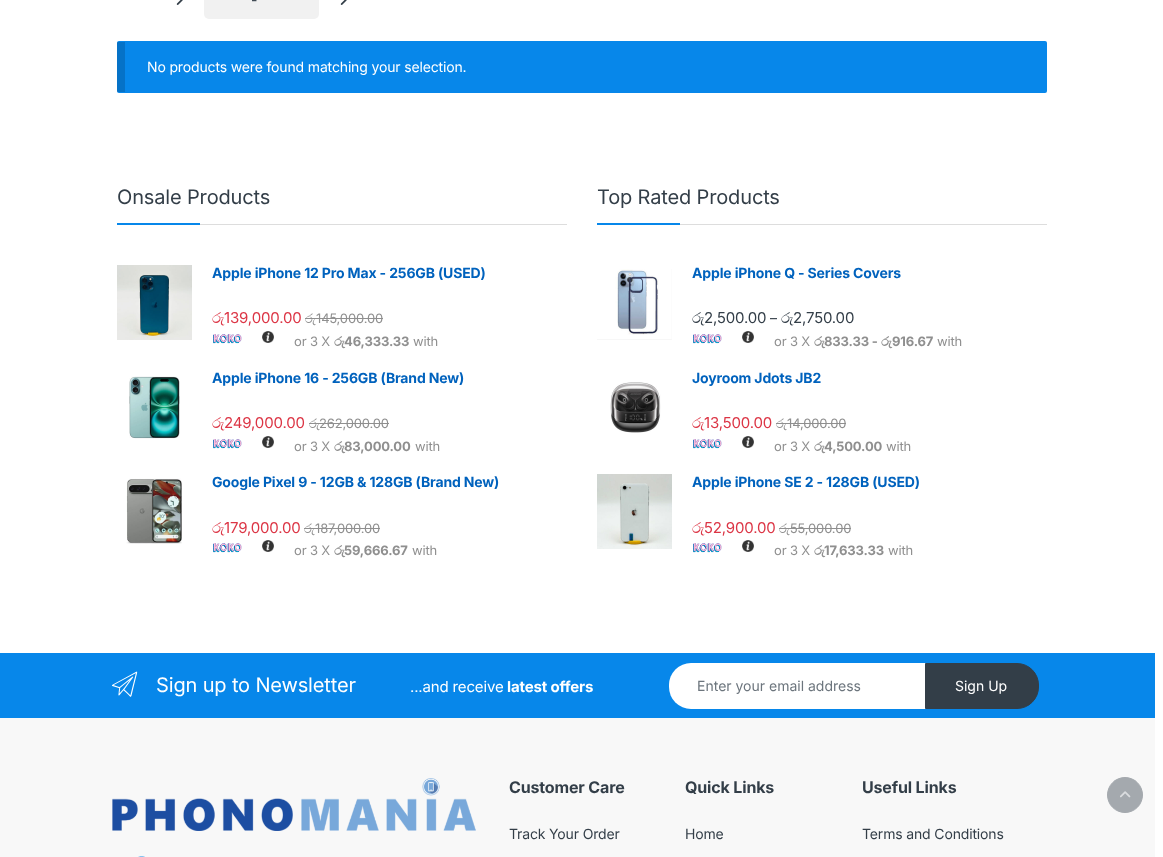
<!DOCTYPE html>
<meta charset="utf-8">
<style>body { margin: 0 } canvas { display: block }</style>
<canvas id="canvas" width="1163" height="857"></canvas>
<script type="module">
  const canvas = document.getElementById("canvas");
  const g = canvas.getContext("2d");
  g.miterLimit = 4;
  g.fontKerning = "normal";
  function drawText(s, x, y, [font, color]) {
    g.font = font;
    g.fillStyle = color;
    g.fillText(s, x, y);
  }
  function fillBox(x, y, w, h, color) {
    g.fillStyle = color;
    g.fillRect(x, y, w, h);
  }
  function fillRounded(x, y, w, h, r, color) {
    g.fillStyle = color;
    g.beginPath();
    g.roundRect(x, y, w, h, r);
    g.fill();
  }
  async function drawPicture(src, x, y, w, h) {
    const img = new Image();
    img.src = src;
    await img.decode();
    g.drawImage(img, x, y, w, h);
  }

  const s1 = ["14px Inter", "#333E48"];
  const s2 = ["14px Inter", "#FFFFFF"];
  const s3 = ["20px Inter", "#333E48"];
  const s4 = ["bold 14px Inter", "#0062BD"];
  const s5 = ["15px FreeSerif", "#DC3545"];
  const s6 = ["15px Inter", "#DC3545"];
  const s7 = ["13px FreeSerif", "#8F8F8F"];
  const s8 = ["13px Inter", "#8F8F8F"];
  const s9 = ["bold 13px FreeSerif", "#8F8F8F"];
  const s10 = ["bold 13px Inter", "#8F8F8F"];
  const s11 = ["15px FreeSerif", "#333E48"];
  const s12 = ["15px Inter", "#333E48"];
  const s13 = ["20px Inter", "#FFFFFF"];
  const s14 = ["15px Inter", "#FFFFFF"];
  const s15 = ["bold 15px Inter", "#FFFFFF"];
  const s16 = ["14px Inter", "#6C757D"];
  const s17 = ["bold 16px Inter", "#333E48"];

  fillBox(0, 0, 1163, 857, "#FFFFFF");
  await drawPicture("pic1.png", 176, 0, 7, 5);
  fillRounded(204, -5, 115, 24, 5, "#F1F1F1");
  g.letterSpacing = "-0.15px";
  drawText("-", 251, 5, s1);
  await drawPicture("pic1.png", 340, 0, 7, 5);
  fillRounded(117, 41, 930, 52, 2, "#0787EA");
  fillBox(117, 42, 8, 50, "rgba(0, 0, 0, 0.15)");
  drawText("No products were found matching your selection.", 147, 72, s2);
  fillBox(200, 224, 367, 1, "#DDDDDD");
  drawText("Onsale Products", 117, 204, s3);
  fillBox(117, 223, 83, 2, "#0787EA");
  await drawPicture("pic2.png", 117, 265, 75, 75);
  drawText("Apple iPhone 12 Pro Max - 256GB (USED)", 212, 278, s4);
  drawText("රු", 212, 323, s5);
  drawText("139,000.00", 224, 323, s6);
  drawText("රු", 305, 323, s7);
  fillBox(305, 318, 11, 1, "#8F8F8F");
  fillBox(316, 318, 67, 1, "#8F8F8F");
  drawText("145,000.00", 316, 323, s8);
  await drawPicture("pic3.png", 213, 334, 29, 10);
  await drawPicture("pic4.png", 262, 331, 12, 12);
  drawText("or 3 X", 294, 346, s8);
  drawText("රු", 334, 346, s9);
  drawText("46,333.33", 344, 346, s10);
  drawText("with", 413, 346, s8);
  await drawPicture("pic5.png", 129, 376, 51, 63);
  drawText("Apple iPhone 16 - 256GB (Brand New)", 212, 383, s4);
  drawText("රු", 212, 428, s5);
  drawText("249,000.00", 224, 428, s6);
  drawText("රු", 309, 428, s7);
  fillBox(309, 423, 10, 1, "#8F8F8F");
  fillBox(319, 423, 70, 1, "#8F8F8F");
  drawText("262,000.00", 319, 428, s8);
  await drawPicture("pic3.png", 213, 439, 29, 10);
  await drawPicture("pic4.png", 262, 436, 12, 12);
  drawText("or 3 X", 294, 451, s8);
  drawText("රු", 334, 451, s9);
  drawText("83,000.00", 344, 451, s10);
  drawText("with", 415, 451, s8);
  await drawPicture("pic6.png", 126, 478, 56, 66);
  drawText("Google Pixel 9 - 12GB & 128GB (Brand New)", 212, 487, s4);
  drawText("රු", 212, 533, s5);
  drawText("179,000.00", 224, 533, s6);
  drawText("රු", 304, 533, s7);
  fillBox(304, 528, 11, 1, "#8F8F8F");
  fillBox(315, 528, 65, 1, "#8F8F8F");
  drawText("187,000.00", 315, 533, s8);
  await drawPicture("pic3.png", 213, 543, 29, 10);
  await drawPicture("pic4.png", 262, 540, 12, 12);
  drawText("or 3 X", 294, 555, s8);
  drawText("රු", 334, 555, s9);
  drawText("59,666.67", 344, 555, s10);
  drawText("with", 412, 555, s8);
  fillBox(680, 224, 367, 1, "#DDDDDD");
  drawText("Top Rated Products", 597, 204, s3);
  fillBox(597, 223, 83, 2, "#0787EA");
  await drawPicture("pic7.png", 597, 269, 75, 71);
  drawText("Apple iPhone Q - Series Covers", 692, 278, s4);
  drawText("රු", 692, 323, s11);
  drawText("2,500.00", 704, 323, s12);
  drawText("–", 770, 323, s1);
  drawText("රු", 781, 323, s11);
  drawText("2,750.00", 793, 323, s12);
  await drawPicture("pic8.png", 693, 334, 29, 10);
  await drawPicture("pic4.png", 742, 331, 12, 12);
  drawText("or 3 X", 774, 346, s8);
  drawText("රු", 814, 346, s9);
  drawText("833.33 -", 824, 346, s10);
  drawText("රු", 881, 346, s9);
  drawText("916.67", 892, 346, s10);
  drawText("with", 937, 346, s8);
  drawText("Joyroom Jdots JB2", 692, 383, s4);
  await drawPicture("pic9.png", 610, 382, 51, 51);
  drawText("රු", 692, 428, s5);
  drawText("13,500.00", 704, 428, s6);
  drawText("රු", 776, 428, s7);
  fillBox(776, 423, 11, 1, "#8F8F8F");
  fillBox(787, 423, 59, 1, "#8F8F8F");
  drawText("14,000.00", 787, 428, s8);
  await drawPicture("pic10.png", 693, 439, 29, 10);
  await drawPicture("pic4.png", 742, 436, 12, 12);
  drawText("or 3 X", 774, 451, s8);
  drawText("රු", 814, 451, s9);
  drawText("4,500.00", 824, 451, s10);
  drawText("with", 886, 451, s8);
  await drawPicture("pic11.png", 597, 474, 75, 75);
  drawText("Apple iPhone SE 2 - 128GB (USED)", 692, 487, s4);
  drawText("රු", 692, 533, s5);
  drawText("52,900.00", 704, 533, s6);
  drawText("රු", 779, 533, s7);
  fillBox(779, 528, 11, 1, "#8F8F8F");
  fillBox(790, 528, 61, 1, "#8F8F8F");
  drawText("55,000.00", 790, 533, s8);
  await drawPicture("pic10.png", 693, 543, 29, 10);
  await drawPicture("pic4.png", 742, 540, 12, 12);
  drawText("or 3 X", 774, 555, s8);
  drawText("රු", 814, 555, s9);
  drawText("17,633.33", 824, 555, s10);
  drawText("with", 888, 555, s8);
  fillBox(0, 653, 1155, 65, "#0787EA");
  await drawPicture("pic12.png", 112, 671, 26, 26);
  drawText("Sign up to Newsletter", 156, 692, s13);
  drawText("...and receive", 410, 692, s14);
  drawText("latest offers", 507, 692, s15);
  g.beginPath();
  g.roundRect(669, 663, 257, 46, [22, 0, 0, 22]);
  g.fill();
  g.letterSpacing = "0px";
  drawText("Enter your email address", 697, 691, s16);
  g.fillStyle = "#333E48";
  g.beginPath();
  g.roundRect(925.5, 663.5, 113, 45, [0, 21.5, 21.5, 0]);
  g.fill();
  g.strokeStyle = "#333E48";
  g.stroke();
  drawText("Sign Up", 955, 691, s2);
  fillBox(0, 718, 1155, 139, "#F8F8F8");
  await drawPicture("pic13.png", 112, 778, 364, 53);
  await drawPicture("pic14.png", 138, 856, 7, 1);
  g.letterSpacing = "-0.15px";
  drawText("Customer Care", 509, 793, s17);
  drawText("Track Your Order", 509, 839, s1);
  drawText("Quick Links", 685, 793, s17);
  drawText("Home", 685, 839, s1);
  drawText("Useful Links", 862, 793, s17);
  drawText("Terms and Conditions", 862, 839, s1);
  g.fillStyle = "#A4A9AE";
  g.beginPath();
  g.arc(1125, 795, 17.5, 0, Math.PI * 2);
  g.fill();
  g.strokeStyle = "#A4A9AE";
  g.stroke();
  await drawPicture("pic15.png", 1120, 791, 11, 7);
</script>
